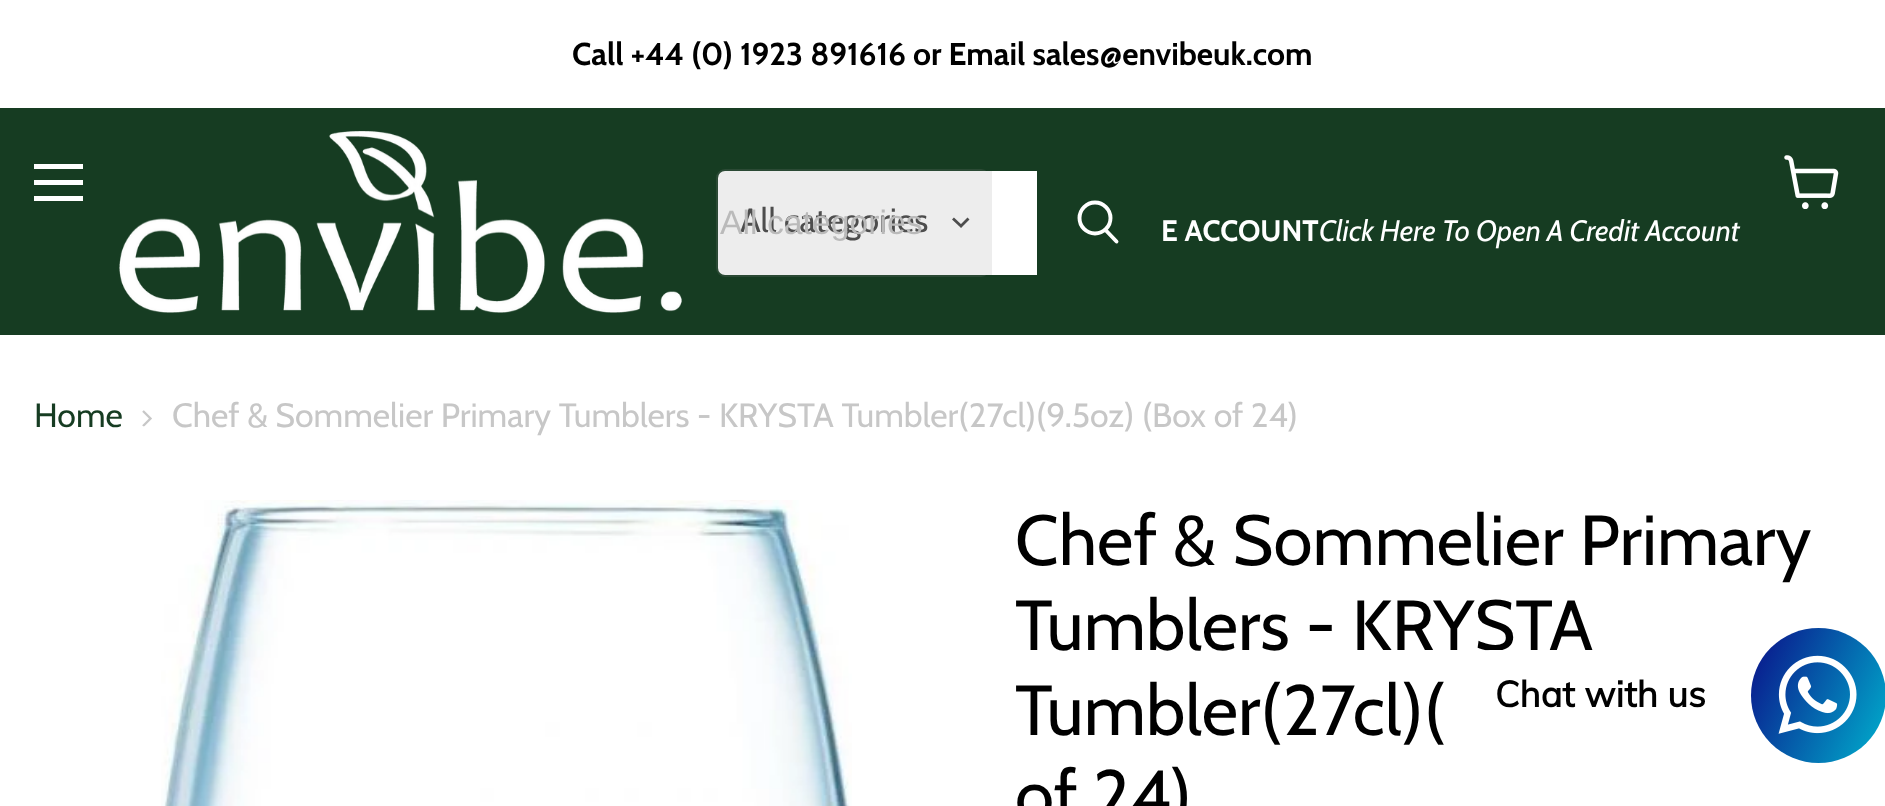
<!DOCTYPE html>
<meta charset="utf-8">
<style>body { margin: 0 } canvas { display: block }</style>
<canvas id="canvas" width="1885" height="806"></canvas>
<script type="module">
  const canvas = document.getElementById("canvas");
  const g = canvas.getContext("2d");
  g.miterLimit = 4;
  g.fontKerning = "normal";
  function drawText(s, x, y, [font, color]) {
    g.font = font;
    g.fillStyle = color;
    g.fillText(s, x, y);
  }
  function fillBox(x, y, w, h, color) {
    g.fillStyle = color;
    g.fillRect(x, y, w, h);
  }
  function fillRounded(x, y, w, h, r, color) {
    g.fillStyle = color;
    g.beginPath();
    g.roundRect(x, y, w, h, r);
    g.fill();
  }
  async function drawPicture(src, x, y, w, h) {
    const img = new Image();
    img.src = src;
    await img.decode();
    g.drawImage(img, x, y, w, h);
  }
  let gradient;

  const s1 = ["bold 31.6px Cabin", "#000000"];
  const s2 = ["33.75px Cabin", "#4D4D4D"];
  const s3 = ["33.75px Liberation Sans", "#BABABA"];
  const s4 = ["bold 29.5px Cabin", "#FFFFFF"];
  const s5 = ["italic 29.5px Cabin", "#FFFFFF"];
  const s6 = ["33.75px Cabin", "#163C22"];
  const s7 = ["33.75px Cabin", "#C7C7C7"];
  const s8 = ["70.9px Cabin", "#000000"];
  const s9 = ["bold 36px Muli", "#000000"];

  fillBox(0, 0, 1885, 806, "#FFFFFF");
  drawText("Call +44 (0) 1923 891616 or Email sales@envibeuk.com", 572, 65, s1);
  fillBox(0, 108, 1885, 227, "#163C22");
  fillBox(34, 164, 49, 5, "#FFFFFF");
  fillBox(34, 180, 49, 5, "#FFFFFF");
  fillBox(34, 196, 49, 5, "#FFFFFF");
  await drawPicture("pic1.png", 1784, 155, 55, 54);
  await drawPicture("pic2.png", 119, 131, 563, 182);
  g.beginPath();
  g.roundRect(717, 170, 272, 106, 8);
  g.strokeStyle = "rgba(128, 128, 128, 0.2)";
  g.lineWidth = 2;
  g.stroke();
  g.fillStyle = "#EDEDED";
  g.beginPath();
  g.roundRect(718, 171, 274, 104, [7, 0, 0, 7]);
  g.fill();
  drawText("All categories", 740, 232, s2);
  drawText("All categories", 720, 234, s3);
  g.beginPath();
  g.moveTo(961, 226);
  g.lineTo(967.5, 219.5);
  g.moveTo(961, 226);
  g.lineTo(954, 219.5);
  g.strokeStyle = "#4D4D4D";
  g.lineWidth = 2.8;
  g.lineCap = "square";
  g.stroke();
  fillBox(992, 171, 45, 104, "#FFFFFF");
  g.beginPath();
  g.moveTo(1116.5, 241.5);
  g.lineTo(1106, 230.5);
  g.strokeStyle = "#FFFFFF";
  g.lineWidth = 3.9;
  g.lineCap = "round";
  g.stroke();
  g.beginPath();
  g.arc(1095, 218, 15.5, 0, Math.PI * 2);
  g.stroke();
  drawText("E ACCOUNT", 1161, 241, s4);
  drawText("Click Here To Open A Credit Account", 1319, 241, s5);
  drawText("Home", 34, 427, s6);
  await drawPicture("pic3.png", 142, 410, 10, 17);
  drawText("Chef & Sommelier Primary Tumblers - KRYSTA Tumbler(27cl)(9.5oz) (Box of 24)", 172, 427, s7);
  await drawPicture("pic4.png", 161, 500, 691, 306);
  drawText("Chef & Sommelier Primary", 1015, 565, s8);
  drawText("Tumblers - KRYSTA", 1015, 650, s8);
  drawText("Tumbler(27cl)(", 1015, 735, s8);
  drawText("of 24)", 1015, 820, s8);
  gradient = g.createLinearGradient(1737, 657, 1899, 733);
  gradient.addColorStop(0, "#0A0E88");
  gradient.addColorStop(1, "#00B1CE");
  g.fillStyle = gradient;
  g.beginPath();
  g.arc(1818.5, 695.5, 67.5, 0, Math.PI * 2);
  g.fill();
  fillRounded(1472, 650, 256, 88, 18, "#FFFFFF");
  drawText("Chat with us", 1495, 707, s9);
  await drawPicture("pic5.png", 1778, 655, 79, 79);
</script>
